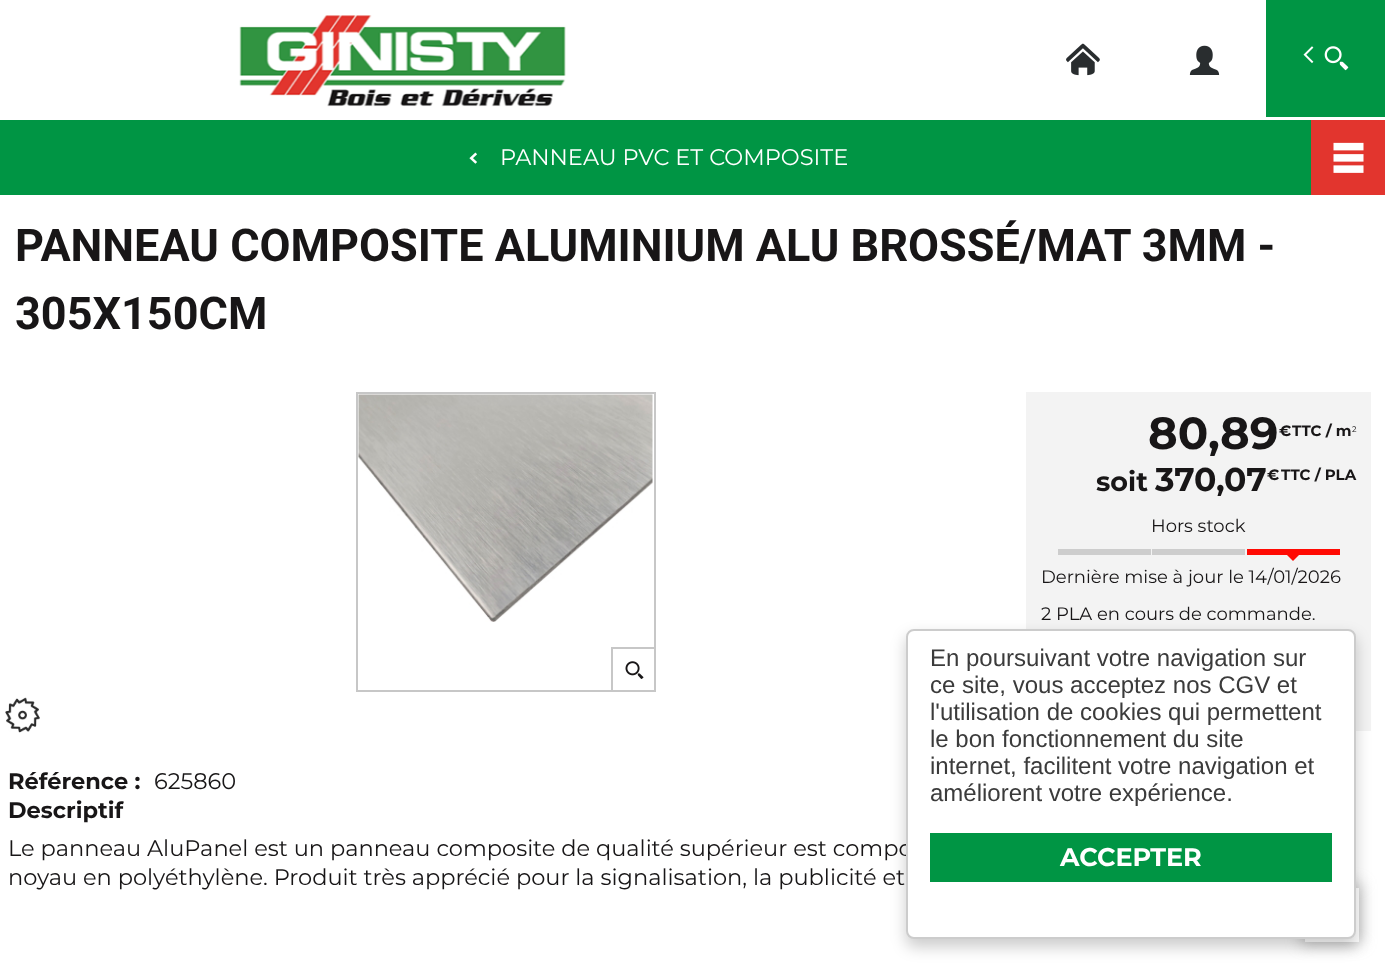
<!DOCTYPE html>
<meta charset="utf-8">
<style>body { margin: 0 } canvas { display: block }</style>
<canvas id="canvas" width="1385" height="968"></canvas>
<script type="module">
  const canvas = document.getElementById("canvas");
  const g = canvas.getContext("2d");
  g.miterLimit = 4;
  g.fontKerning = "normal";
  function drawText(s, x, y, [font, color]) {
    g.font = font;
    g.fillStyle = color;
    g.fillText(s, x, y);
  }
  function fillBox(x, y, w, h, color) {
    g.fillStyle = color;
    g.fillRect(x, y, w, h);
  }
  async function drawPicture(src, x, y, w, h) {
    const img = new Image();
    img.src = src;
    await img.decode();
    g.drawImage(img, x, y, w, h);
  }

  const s1 = ["22.5px Montserrat", "#FFFFFF"];
  const s2 = ["bold 45px Roboto", "#181617"];
  const s3 = ["bold 45px Montserrat", "#181617"];
  const s4 = ["bold 15px Montserrat", "#181617"];
  const s5 = ["8px Montserrat", "#181617"];
  const s6 = ["bold 27px Montserrat", "#181617"];
  const s7 = ["bold 33px Montserrat", "#181617"];
  const s8 = ["18px Montserrat", "#181617"];
  const s9 = ["bold 22.5px Montserrat", "#181617"];
  const s10 = ["22.5px Montserrat", "#181617"];
  const s11 = ["24px Liberation Sans", "#3B3B3B"];
  const s12 = ["bold 25.5px Montserrat", "#FFFFFF"];

  fillBox(0, 0, 1385, 968, "#FFFFFF");
  await drawPicture("pic1.png", 239, 15, 327, 92);
  await drawPicture("pic2.png", 1066, 43, 34, 33);
  await drawPicture("pic3.png", 1189, 45, 31, 30);
  fillBox(1266, 0, 119, 117, "#009544");
  await drawPicture("pic4.png", 1303, 46, 46, 25);
  fillBox(0, 120, 1311, 75, "#009544");
  await drawPicture("pic5.png", 469, 152, 8, 12);
  drawText("PANNEAU PVC ET COMPOSITE", 500, 165, s1);
  fillBox(1311, 120, 74, 75, "#E2352E");
  await drawPicture("pic6.png", 1333, 142, 31, 31);
  drawText("PANNEAU COMPOSITE ALUMINIUM ALU BROSSÉ/MAT 3MM -", 15, 261, s2);
  drawText("305X150CM", 15, 329, s2);
  g.strokeStyle = "#C7C7C7";
  g.lineWidth = 2;
  g.strokeRect(357, 393, 298, 298);
  await drawPicture("pic7.png", 358, 394, 295, 228);
  fillBox(611, 647, 45, 2, "#C7C7C7");
  fillBox(611, 647, 2, 45, "#C7C7C7");
  await drawPicture("pic8.png", 625, 661, 19, 18);
  await drawPicture("pic9.png", 5, 697, 35, 36);
  fillBox(1026, 392, 345, 339, "#F3F3F3");
  drawText("80", 1148, 449, s3);
  drawText("89", 1220, 449, s3);
  drawText("€", 1279, 436, s4);
  drawText("TTC / m", 1292, 436, s4);
  drawText("2", 1352, 432, s5);
  drawText(",", 1208, 449, s3);
  drawText("soit", 1096, 491, s6);
  drawText("370", 1155, 491, s7);
  drawText("07", 1224, 491, s7);
  drawText("€", 1267, 480, s4);
  drawText("TTC / PLA", 1281, 480, s4);
  drawText(",", 1216, 491, s7);
  drawText("Hors stock", 1151, 532, s8);
  fillBox(1058, 549, 93, 6, "#CDCDCD");
  fillBox(1152, 549, 93, 6, "#CDCDCD");
  fillBox(1247, 549, 93, 6, "#FF0A03");
  g.beginPath();
  g.moveTo(1287, 555);
  g.lineTo(1299, 555);
  g.lineTo(1293, 561);
  g.closePath();
  g.fill();
  drawText("Dernière mise à jour le 14/01/2026", 1041, 583, s8);
  drawText("2 PLA en cours de commande.", 1041, 620, s8);
  drawText("Référence :", 8, 789, s9);
  drawText("625860", 154, 789, s10);
  drawText("Descriptif", 8, 818, s9);
  drawText("Le panneau AluPanel est un panneau composite de qualité supérieur est compo", 8, 856, s10);
  drawText("noyau en polyéthylène. Produit très apprécié pour la signalisation, la publicité et", 8, 885, s10);
  g.fillStyle = "rgba(127, 127, 127, 0.5)";
  g.filter = "blur(7.5px)";
  g.beginPath();
  g.rect(1301, 884, 60, 60);
  g.fill();
  g.filter = "none";
  g.fillStyle = "#FFFFFF";
  g.beginPath();
  g.moveTo(1329, 912);
  g.lineTo(1329, 932);
  g.lineTo(1335, 932);
  g.lineTo(1335, 912);
  g.lineTo(1344, 912);
  g.lineTo(1332, 898);
  g.lineTo(1320, 912);
  g.closePath();
  g.moveTo(1305, 888);
  g.lineTo(1359, 888);
  g.lineTo(1359, 942);
  g.lineTo(1305, 942);
  g.closePath();
  g.fill();
  g.fillStyle = "rgba(0, 0, 0, 0.2)";
  g.filter = "blur(7.5px)";
  g.beginPath();
  g.roundRect(906, 636, 450, 311, 8);
  g.fill();
  g.filter = "none";
  g.fillStyle = "#FFFFFF";
  g.beginPath();
  g.roundRect(907, 630, 448, 308, 7);
  g.fill();
  g.strokeStyle = "#CCCCCC";
  g.stroke();
  drawText("En poursuivant votre navigation sur", 930, 666, s11);
  drawText("ce site, vous acceptez nos CGV et", 930, 693, s11);
  drawText("l'utilisation de cookies qui permettent", 930, 720, s11);
  drawText("le bon fonctionnement du site", 930, 747, s11);
  drawText("internet, facilitent votre navigation et", 930, 774, s11);
  drawText("améliorent votre expérience.", 930, 801, s11);
  fillBox(930, 833, 402, 49, "#009544");
  drawText("ACCEPTER", 1060, 866, s12);
</script>
